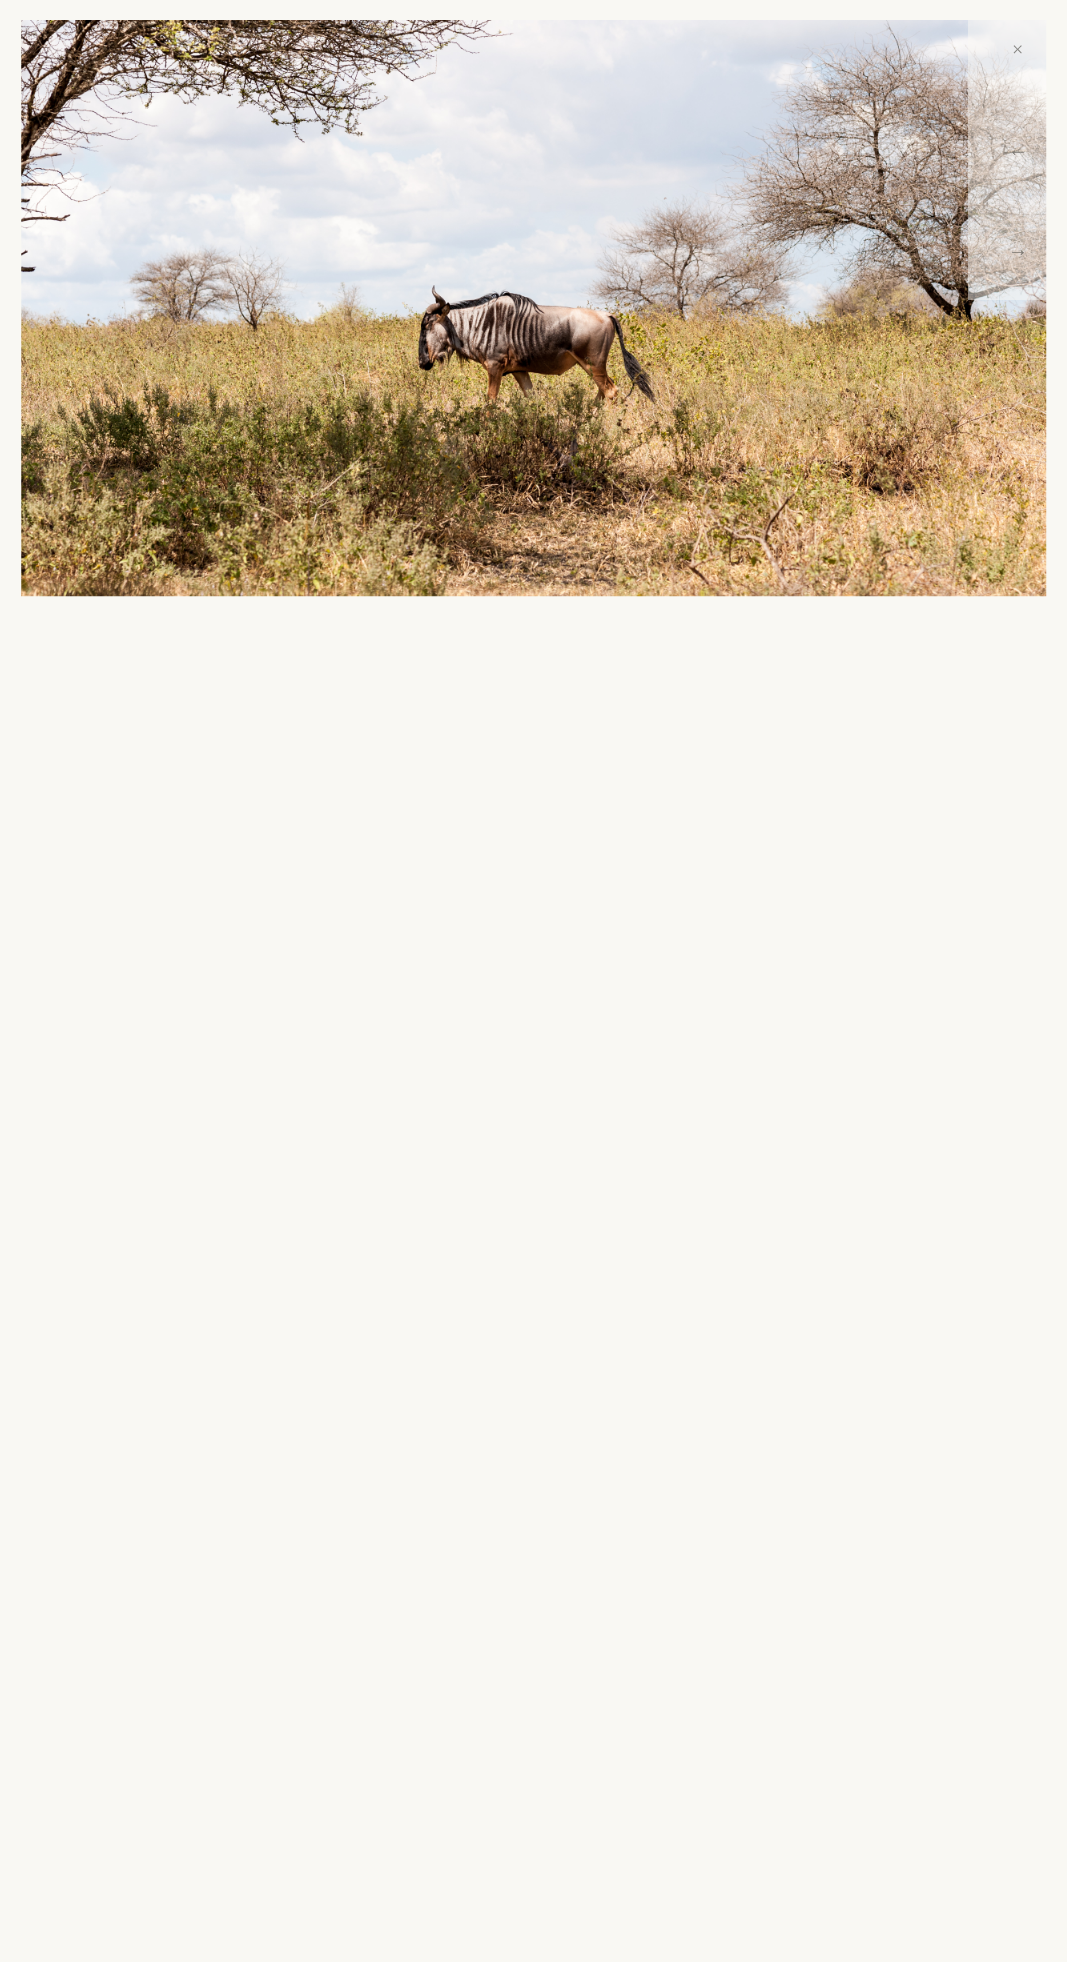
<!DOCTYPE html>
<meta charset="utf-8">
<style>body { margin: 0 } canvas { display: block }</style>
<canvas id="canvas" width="1067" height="1962"></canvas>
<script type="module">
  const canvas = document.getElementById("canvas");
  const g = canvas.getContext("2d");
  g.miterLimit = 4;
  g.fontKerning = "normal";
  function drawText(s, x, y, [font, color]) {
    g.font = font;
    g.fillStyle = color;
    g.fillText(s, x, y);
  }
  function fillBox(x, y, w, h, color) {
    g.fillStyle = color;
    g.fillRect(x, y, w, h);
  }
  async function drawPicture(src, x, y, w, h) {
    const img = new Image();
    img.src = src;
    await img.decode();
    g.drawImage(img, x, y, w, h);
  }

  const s1 = ["20px Liberation Serif", "#868582"];
  const s2 = ["20px Liberation Serif", "#7B7771"];

  fillBox(0, 0, 1067, 1962, "#F9F8F3");
  await drawPicture("pic1.png", 21, 20, 1026, 577);
  fillBox(968, 20, 79, 80, "rgba(249, 248, 243, 0.5)");
  drawText("×", 1012, 56, s1);
  fillBox(968, 100, 79, 100, "rgba(249, 248, 243, 0.5)");
  drawText("←", 1008, 156, s2);
  fillBox(968, 200, 79, 100, "rgba(249, 248, 243, 0.5)");
  drawText("→", 1008, 256, s2);
</script>
